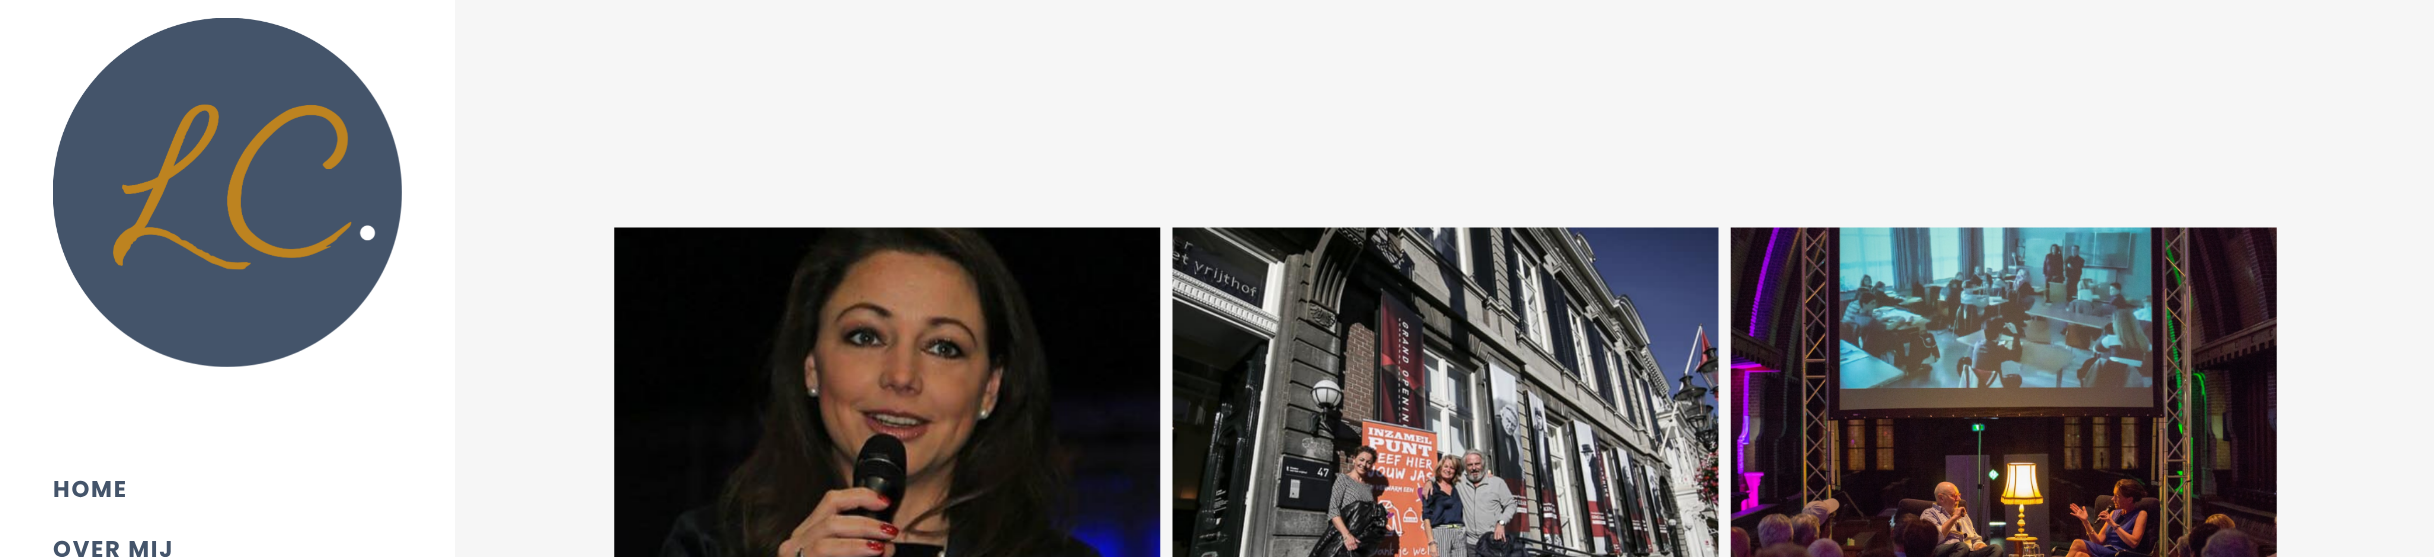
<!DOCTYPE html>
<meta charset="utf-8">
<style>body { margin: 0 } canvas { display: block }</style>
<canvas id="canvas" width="2434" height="557"></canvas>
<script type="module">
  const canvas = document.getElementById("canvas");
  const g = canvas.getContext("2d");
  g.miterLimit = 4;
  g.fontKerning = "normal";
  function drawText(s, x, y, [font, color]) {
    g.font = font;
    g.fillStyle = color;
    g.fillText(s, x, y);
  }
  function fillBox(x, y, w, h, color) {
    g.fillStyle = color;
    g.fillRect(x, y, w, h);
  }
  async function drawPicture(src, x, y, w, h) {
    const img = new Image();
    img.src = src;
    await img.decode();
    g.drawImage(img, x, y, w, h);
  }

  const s1 = ["bold 22.75px Poppins", "#44546A"];

  fillBox(0, 0, 2434, 557, "#F6F6F6");
  fillBox(0, 0, 455, 557, "#FFFFFF");
  await drawPicture("pic1.png", 53, 18, 349, 349);
  g.letterSpacing = "1.75px";
  drawText("HOME", 53, 497, s1);
  drawText("OVER MIJ", 53, 557, s1);
  await drawPicture("pic2.png", 614, 227, 547, 330);
  await drawPicture("pic3.png", 1172, 227, 547, 330);
  await drawPicture("pic4.png", 1730, 227, 547, 330);
</script>
